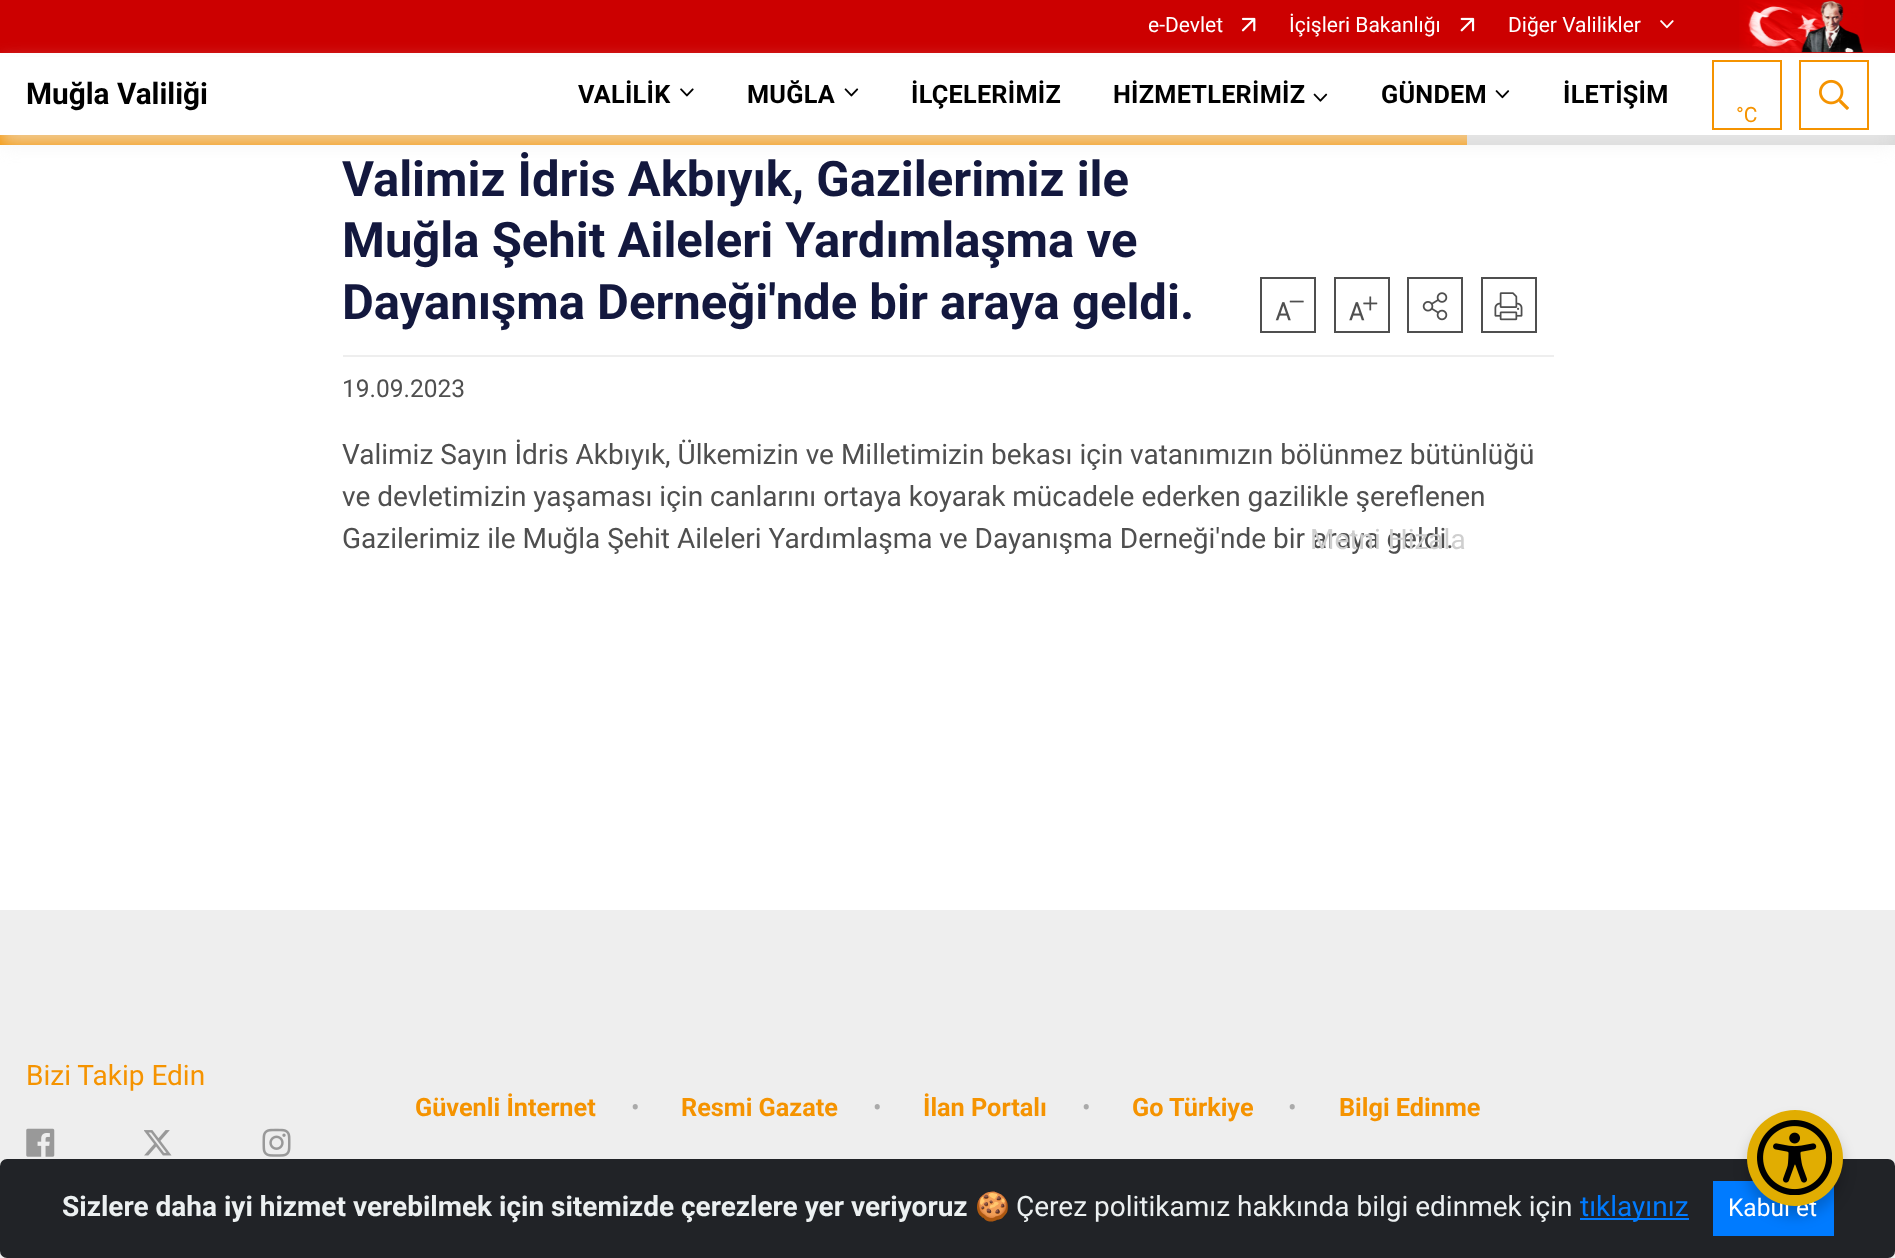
<!DOCTYPE html>
<meta charset="utf-8">
<style>body { margin: 0 } canvas { display: block }</style>
<canvas id="canvas" width="1895" height="1258"></canvas>
<script type="module">
  const canvas = document.getElementById("canvas");
  const g = canvas.getContext("2d");
  g.miterLimit = 4;
  g.fontKerning = "normal";
  function drawText(s, x, y, [font, color]) {
    g.font = font;
    g.fillStyle = color;
    g.fillText(s, x, y);
  }
  function fillBox(x, y, w, h, color) {
    g.fillStyle = color;
    g.fillRect(x, y, w, h);
  }
  function fillRounded(x, y, w, h, r, color) {
    g.fillStyle = color;
    g.beginPath();
    g.roundRect(x, y, w, h, r);
    g.fill();
  }
  async function drawPicture(src, x, y, w, h) {
    const img = new Image();
    img.src = src;
    await img.decode();
    g.drawImage(img, x, y, w, h);
  }

  const s1 = ["21px Roboto", "#FFFFFF"];
  const s2 = ["bold 29.75px Roboto", "#000000"];
  const s3 = ["bold 25.25px Roboto", "#000000"];
  const s4 = ["21px Roboto", "#F59300"];
  const s5 = ["bold 49px Roboto", "#13183E"];
  const s6 = ["24.5px Roboto", "#4F4F4F"];
  const s7 = ["28px Roboto", "#4F4F4F"];
  const s8 = ["28px Roboto", "#F59300"];
  const s9 = ["bold 25.25px Roboto", "#F59300"];
  const s10 = ["25.25px Roboto", "#AAAAAA"];
  const s11 = ["28px Roboto", "#CFCFCF"];
  const s12 = ["24.5px Roboto", "#FFFFFF"];
  const s13 = ["bold 28px Roboto", "#ECF0F1"];
  const s14 = ["28px Noto Color Emoji", "#ECF0F1"];
  const s15 = ["28px Roboto", "#ECF0F1"];
  const s16 = ["28px Roboto", "#007BFF"];

  fillBox(0, 0, 1895, 1258, "#FFFFFF");
  fillBox(0, 0, 1895, 53, "#CC0000");
  drawText("e-Devlet", 1148, 32, s1);
  await drawPicture("pic1.png", 1241, 17, 15, 15);
  drawText("İçişleri Bakanlığı", 1289, 32, s1);
  await drawPicture("pic2.png", 1460, 17, 15, 15);
  drawText("Diğer Valilikler", 1508, 32, s1);
  await drawPicture("pic3.png", 1660, 20, 14, 9);
  await drawPicture("pic4.png", 1739, 0, 125, 53);
  fillBox(1467, 135, 428, 10, "#D7D7D7");
  fillBox(0, 135, 1467, 10, "#F59300");
  g.fillStyle = "rgba(238, 238, 238, 0.62)";
  g.filter = "blur(9px)";
  g.beginPath();
  g.rect(0, 63, 1895, 82);
  g.fill();
  g.filter = "none";
  fillBox(0, 57, 1895, 78, "#FFFFFF");
  drawText("Muğla Valiliği", 26, 104, s2);
  g.letterSpacing = "0.25px";
  drawText("VALİLİK", 578, 103, s3);
  await drawPicture("pic5.png", 680, 88, 14, 9);
  drawText("MUĞLA", 747, 103, s3);
  await drawPicture("pic6.png", 844, 88, 15, 9);
  drawText("İLÇELERİMİZ", 911, 103, s3);
  drawText("HİZMETLERİMİZ", 1113, 103, s3);
  await drawPicture("pic7.png", 1313, 93, 15, 9);
  drawText("GÜNDEM", 1381, 103, s3);
  await drawPicture("pic8.png", 1495, 90, 15, 9);
  drawText("İLETİŞİM", 1563, 103, s3);
  g.strokeStyle = "#F59300";
  g.lineWidth = 2;
  g.strokeRect(1713, 61, 68, 68);
  g.letterSpacing = "0px";
  drawText("°C", 1736, 122, s4);
  g.strokeRect(1800, 61, 68, 68);
  await drawPicture("pic9.png", 1819, 79, 30, 31);
  fillBox(343, 355, 1211, 2, "#EEEEEE");
  drawText("Valimiz İdris Akbıyık, Gazilerimiz ile", 342, 196, s5);
  drawText("Muğla Şehit Aileleri Yardımlaşma ve", 342, 257, s5);
  drawText("Dayanışma Derneği'nde bir araya geldi.", 342, 319, s5);
  g.strokeStyle = "#4F4F4F";
  g.strokeRect(1261, 278, 54, 54);
  await drawPicture("pic10.png", 1275, 300, 29, 21);
  g.strokeRect(1335, 278, 54, 54);
  await drawPicture("pic11.png", 1349, 296, 29, 25);
  g.strokeRect(1408, 278, 54, 54);
  await drawPicture("pic12.png", 1422, 292, 26, 29);
  g.strokeRect(1482, 278, 54, 54);
  await drawPicture("pic13.png", 1494, 292, 29, 29);
  drawText("19.09.2023", 342, 397, s6);
  drawText("Valimiz Sayın İdris Akbıyık, Ülkemizin ve Milletimizin bekası için vatanımızın bölünmez bütünlüğü", 342, 464, s7);
  drawText("ve devletimizin yaşaması için canlarını ortaya koyarak mücadele ederken gazilikle şereflenen", 342, 506, s7);
  drawText("Gazilerimiz ile Muğla Şehit Aileleri Yardımlaşma ve Dayanışma Derneği'nde bir araya geldi.", 342, 548, s7);
  fillBox(0, 910, 1895, 348, "#EEEEEE");
  drawText("Bizi Takip Edin", 26, 1085, s8);
  await drawPicture("pic14.png", 26, 1128, 29, 29);
  await drawPicture("pic15.png", 144, 1130, 28, 26);
  await drawPicture("pic16.png", 262, 1128, 29, 29);
  drawText("Güvenli İnternet", 415, 1116, s9);
  drawText("•", 631, 1116, s10);
  drawText("Resmi Gazate", 681, 1116, s9);
  drawText("•", 873, 1116, s10);
  drawText("İlan Portalı", 923, 1116, s9);
  drawText("•", 1082, 1116, s10);
  drawText("Go Türkiye", 1132, 1116, s9);
  drawText("•", 1288, 1116, s10);
  drawText("Bilgi Edinme", 1339, 1116, s9);
  drawText("Metni Hizala", 1310, 549, s11);
  fillRounded(0, 1159, 1895, 99, 7, "#212327");
  fillBox(1713, 1181, 121, 55, "#007BFF");
  g.fillStyle = "rgba(0, 0, 0, 0.2)";
  g.filter = "blur(7px)";
  g.beginPath();
  g.roundRect(1747, 1120, 96, 96, 48);
  g.fill();
  g.filter = "none";
  drawText("Kabul et", 1728, 1216, s12);
  g.fillStyle = "#E1AD01";
  g.beginPath();
  g.arc(1795, 1158, 48, 0, Math.PI * 2);
  g.fill();
  await drawPicture("pic17.png", 1757, 1120, 75, 75);
  drawText("Sizlere daha iyi hizmet verebilmek için sitemizde çerezlere yer veriyoruz", 62, 1216, s13);
  drawText("🍪", 975, 1216, s14);
  drawText("Çerez politikamız hakkında bilgi edinmek için", 1016, 1216, s15);
  fillBox(1580, 1218, 109, 2, "#007BFF");
  drawText("tıklayınız", 1580, 1216, s16);
</script>
